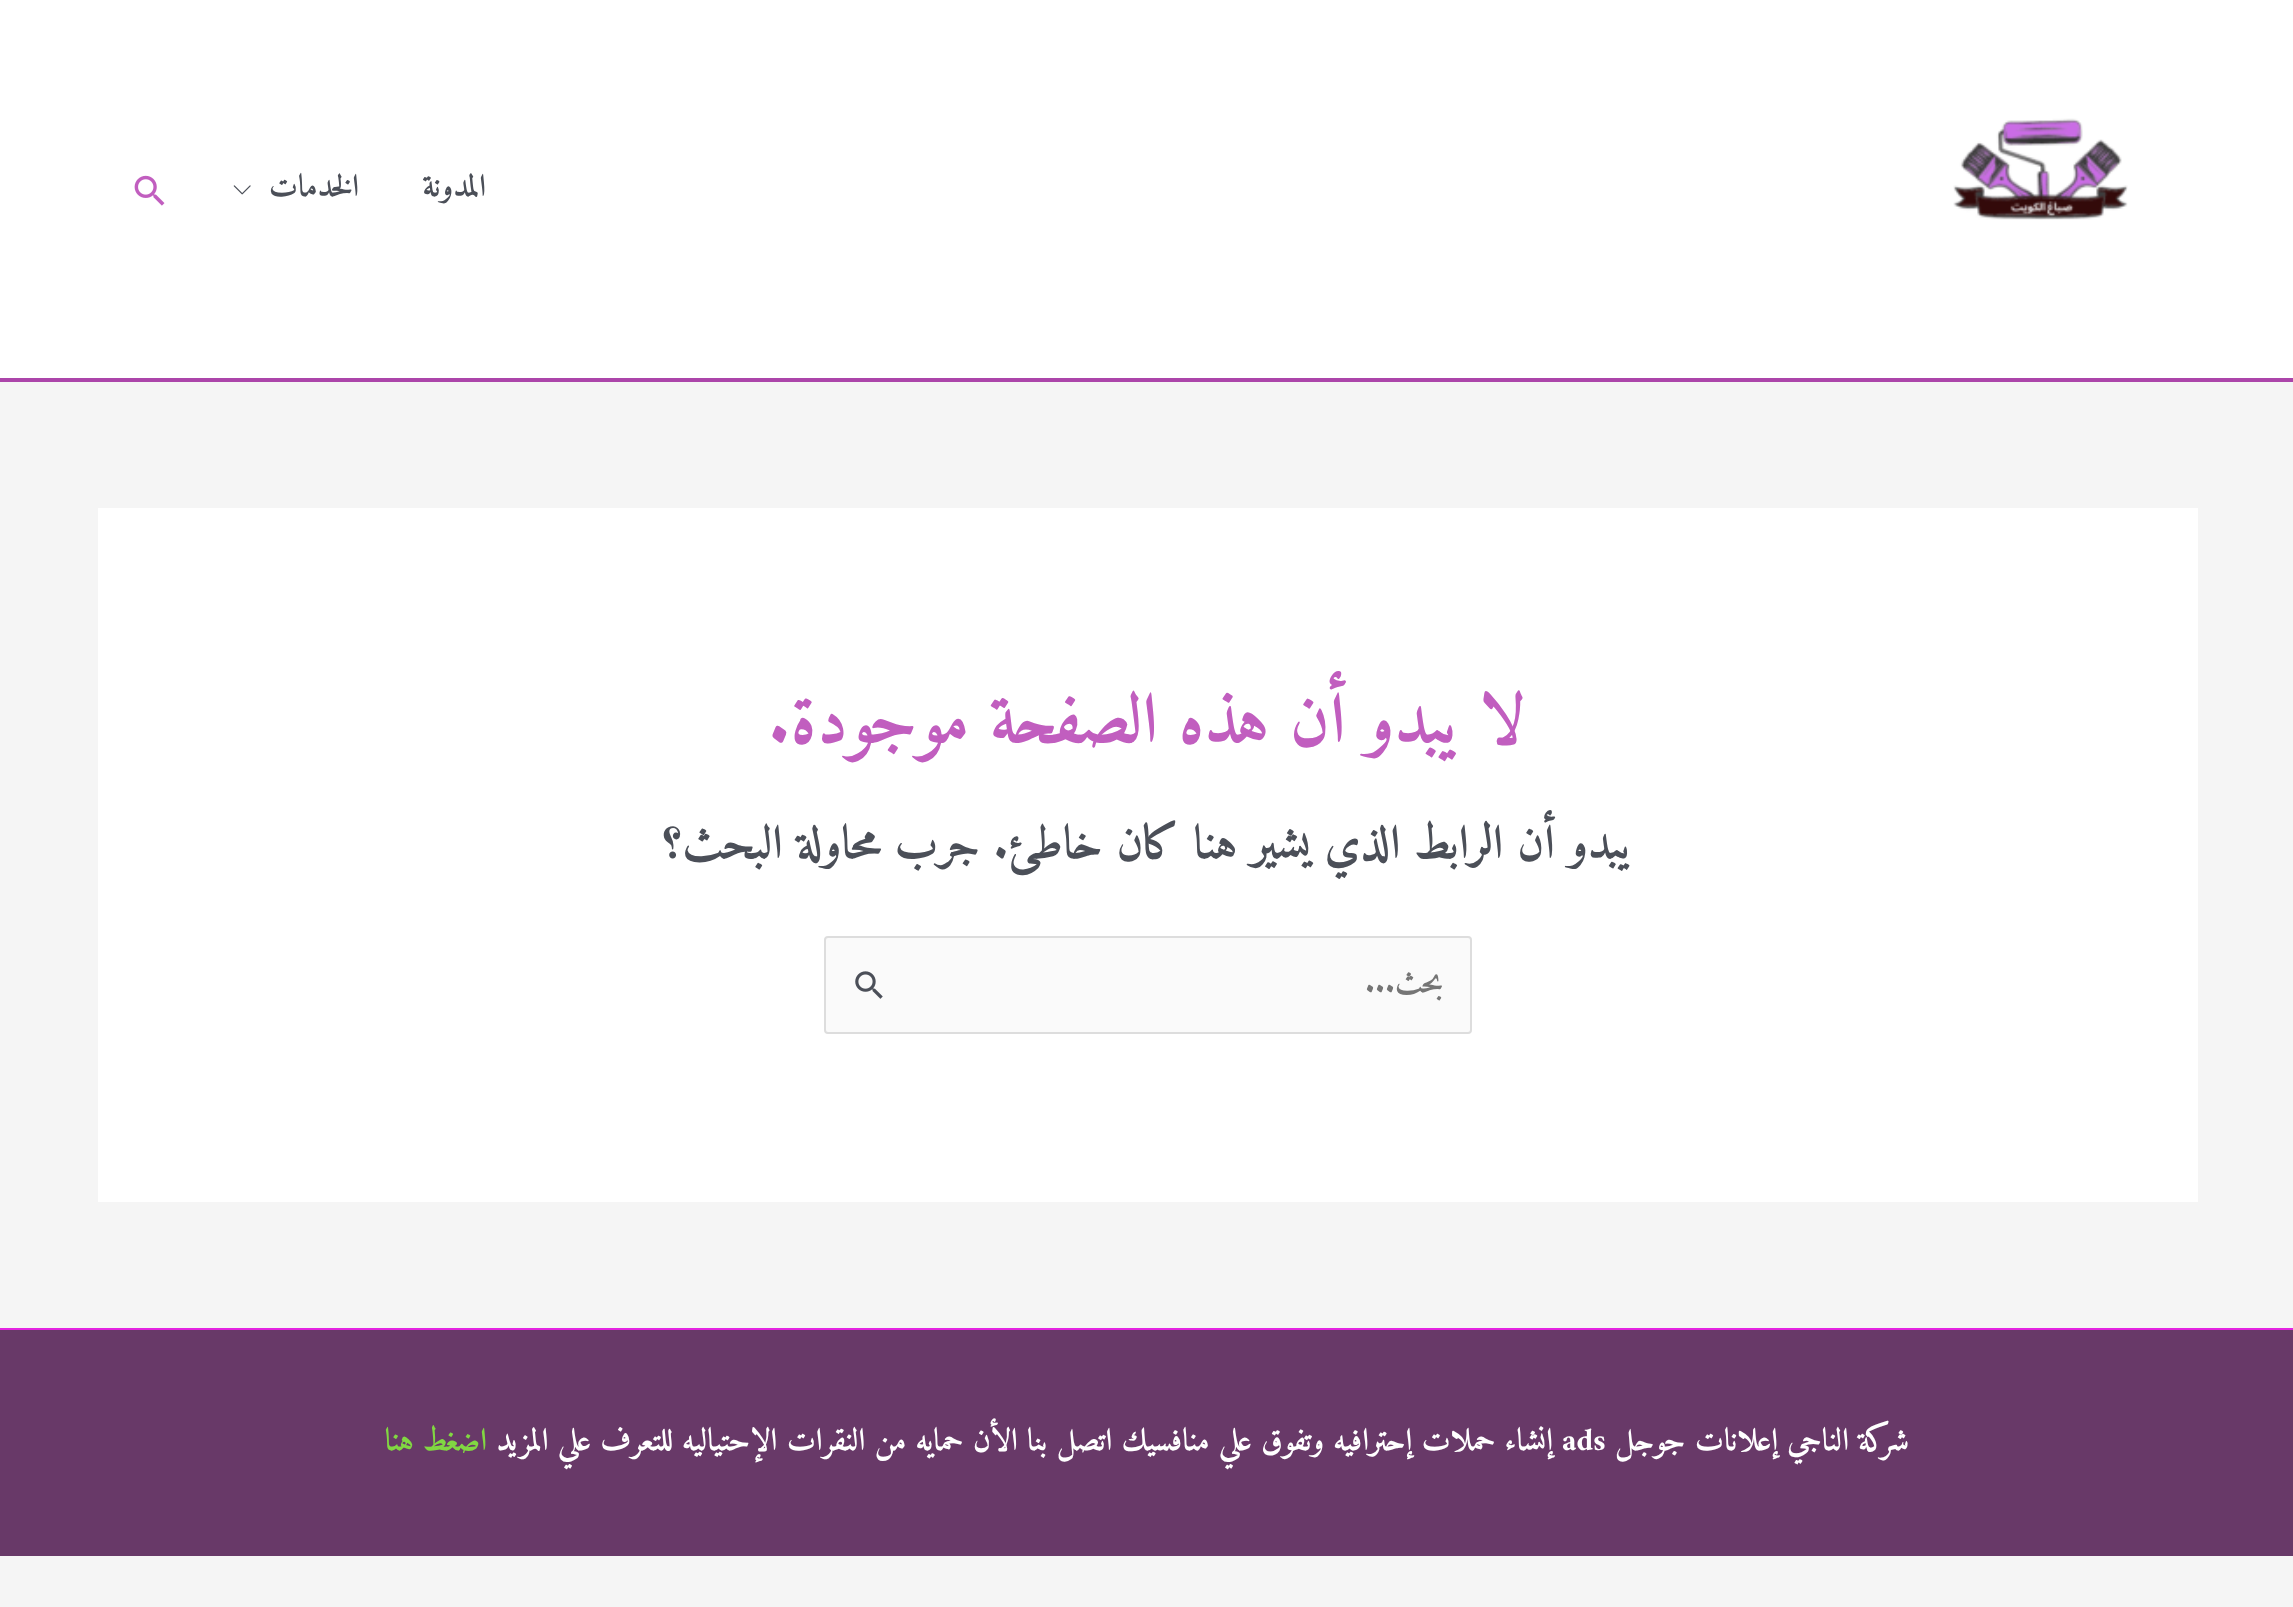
<!DOCTYPE html>
<meta charset="utf-8">
<style>body { margin: 0 } canvas { display: block }</style>
<canvas id="canvas" width="2293" height="1607"></canvas>
<script type="module">
  const canvas = document.getElementById("canvas");
  const g = canvas.getContext("2d");
  g.miterLimit = 4;
  g.fontKerning = "normal";
  function drawText(s, x, y, [font, color]) {
    g.font = font;
    g.fillStyle = color;
    g.fillText(s, x, y);
  }
  function fillBox(x, y, w, h, color) {
    g.fillStyle = color;
    g.fillRect(x, y, w, h);
  }
  async function drawPicture(src, x, y, w, h) {
    const img = new Image();
    img.src = src;
    await img.decode();
    g.drawImage(img, x, y, w, h);
  }

  const s1 = ["bold 31.5px Amiri", "#4B4F58"];
  const s2 = ["bold 70px Amiri", "#C15EBF"];
  const s3 = ["bold 47.25px Amiri", "#4B4F58"];
  const s4 = ["bold 31.5px Amiri", "#757575"];
  const s5 = ["bold 31.5px Amiri", "#FFFFFF"];
  const s6 = ["bold 31.5px Amiri", "#81D742"];

  fillBox(0, 0, 2293, 1607, "#F5F5F5");
  fillBox(0, 0, 2293, 378, "#FFFFFF");
  fillBox(0, 378, 2293, 4, "#AC45AA");
  await drawPicture("pic1.png", 1953, 118, 175, 102);
  g.direction = "rtl";
  drawText("المدونة", 486, 196, s1);
  drawText("الخدمات", 359, 196, s1);
  await drawPicture("pic2.png", 233, 185, 18, 10);
  await drawPicture("pic3.png", 134, 175, 31, 31);
  fillBox(98, 508, 2100, 694, "#FFFFFF");
  drawText("لا يبدو أن هذه الصفحة موجودة.", 1525, 742, s2);
  drawText("يبدو أن الرابط الذي يشير هنا كان خاطئ. جرب محاولة البحث؟", 1632, 858, s3);
  g.fillStyle = "#FAFAFA";
  g.beginPath();
  g.roundRect(825, 937, 646, 96, 3);
  g.fill();
  g.strokeStyle = "#DDDDDD";
  g.lineWidth = 2;
  g.stroke();
  drawText("بحث...", 1443, 992, s4);
  await drawPicture("pic4.png", 855, 971, 28, 28);
  fillBox(0, 1328, 2293, 2, "#E324E0");
  fillBox(0, 1330, 2293, 226, "#683968");
  drawText("شركة الناجي إعلانات جوجل", 1909, 1450, s5);
  g.direction = "ltr";
  drawText("ads", 1562, 1450, s5);
  g.direction = "rtl";
  drawText("إنشاء حملات إحترافيه وتفوق علي منافسيك اتصل بنا الأن حمايه من النقرات الإحتياليه", 1553, 1450, s5);
  drawText("للتعرف علي المزيد", 673, 1450, s5);
  drawText("اضغط هنا", 487, 1450, s6);
</script>
